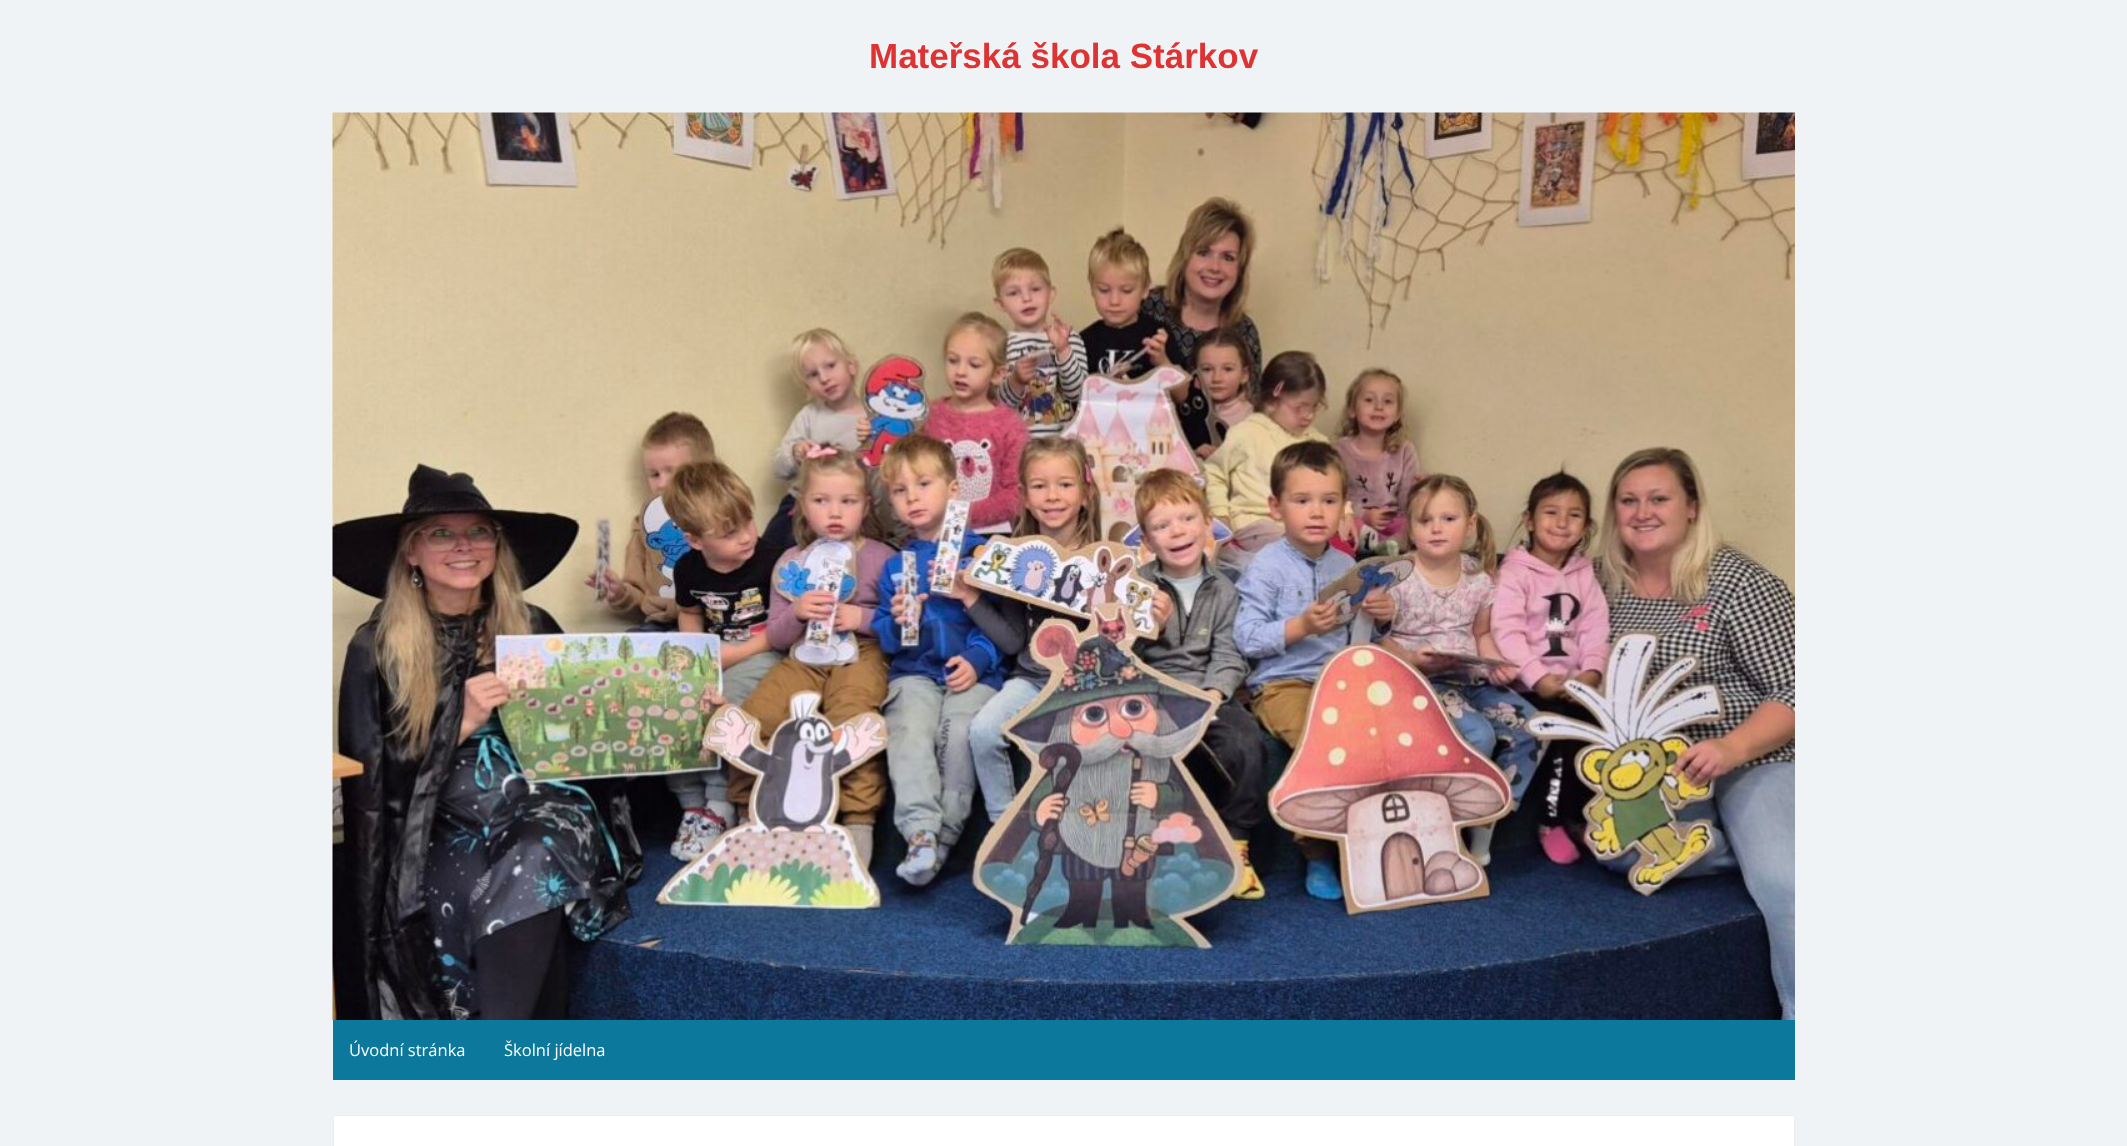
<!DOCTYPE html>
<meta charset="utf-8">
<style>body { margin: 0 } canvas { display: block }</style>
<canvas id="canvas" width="2127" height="1146"></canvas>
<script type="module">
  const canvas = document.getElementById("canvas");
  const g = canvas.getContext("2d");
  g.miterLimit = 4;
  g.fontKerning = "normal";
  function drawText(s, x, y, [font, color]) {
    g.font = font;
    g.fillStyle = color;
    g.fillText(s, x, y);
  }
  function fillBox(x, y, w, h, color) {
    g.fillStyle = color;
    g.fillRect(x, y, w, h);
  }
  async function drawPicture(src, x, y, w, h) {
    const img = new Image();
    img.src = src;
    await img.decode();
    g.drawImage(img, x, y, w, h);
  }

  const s1 = ["bold 35px Liberation Sans", "#DD3333"];
  const s2 = ["16.5px Open Sans", "#FFFFFF"];

  fillBox(0, 0, 2127, 1146, "#F0F3F5");
  drawText("Mateřská škola Stárkov", 869, 68, s1);
  await drawPicture("pic1.png", 332, 112, 1463, 908);
  fillBox(333, 1020, 1462, 60, "#0B789C");
  drawText("Úvodní stránka", 349, 1056, s2);
  drawText("Školní jídelna", 504, 1056, s2);
  g.beginPath();
  g.rect(333.5, 1115.5, 1461, 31);
  g.fill();
  g.strokeStyle = "#EDEDED";
  g.stroke();
</script>
